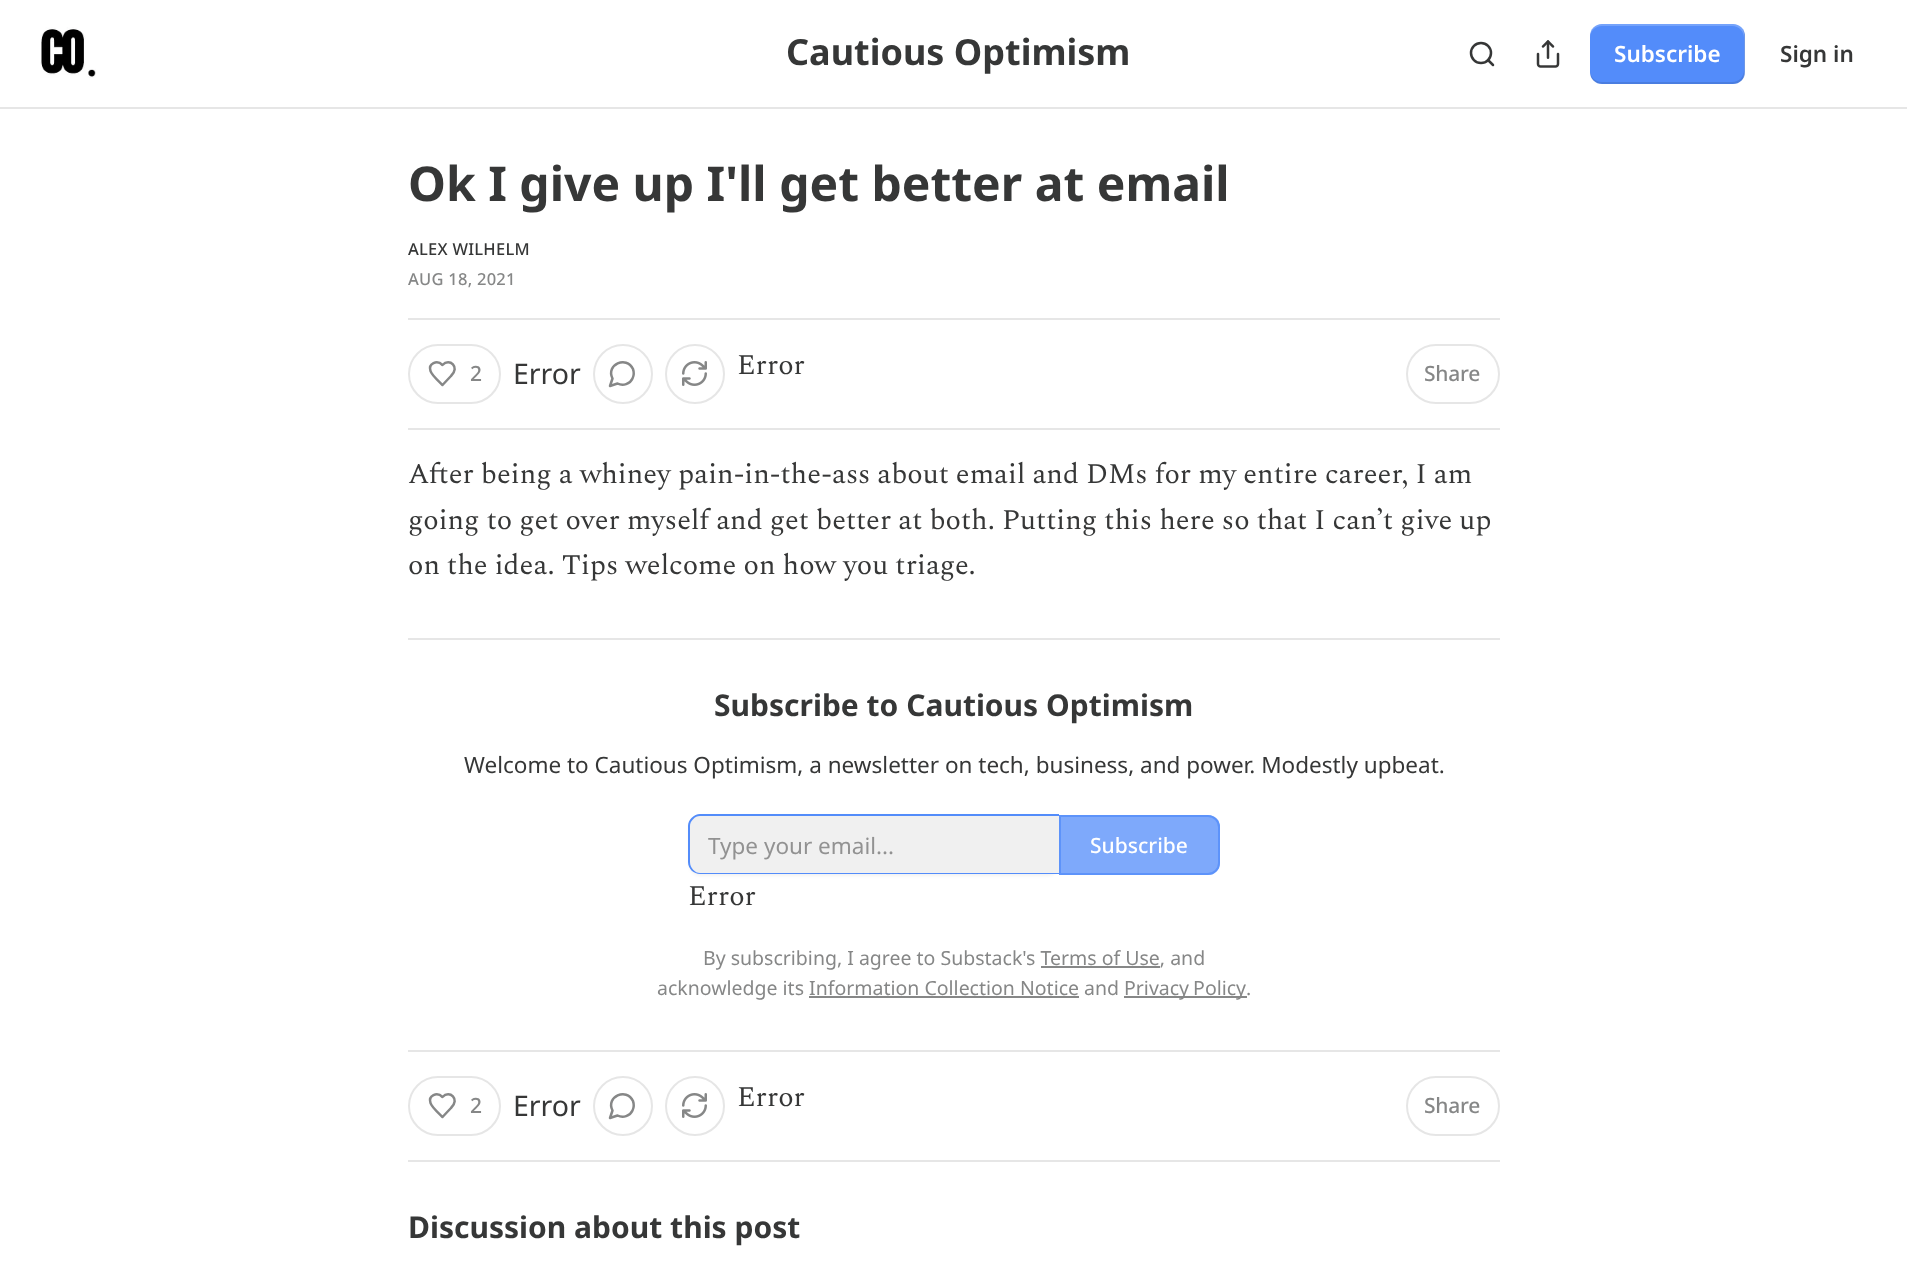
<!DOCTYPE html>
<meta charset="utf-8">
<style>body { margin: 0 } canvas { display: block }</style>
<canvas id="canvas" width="1907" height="1266"></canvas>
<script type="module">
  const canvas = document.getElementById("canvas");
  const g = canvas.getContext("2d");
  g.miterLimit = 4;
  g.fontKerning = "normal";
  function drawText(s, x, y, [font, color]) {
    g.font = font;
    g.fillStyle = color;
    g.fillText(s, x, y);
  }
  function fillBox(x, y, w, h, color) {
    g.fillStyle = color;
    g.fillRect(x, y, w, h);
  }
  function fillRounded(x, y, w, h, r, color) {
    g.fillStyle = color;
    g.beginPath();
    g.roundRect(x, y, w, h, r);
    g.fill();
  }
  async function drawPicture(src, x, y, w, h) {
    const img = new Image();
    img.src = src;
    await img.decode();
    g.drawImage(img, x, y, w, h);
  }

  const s1 = ["bold 36px Noto Sans", "#363737"];
  const s2 = ["600 22.5px Noto Sans", "#FFFFFF"];
  const s3 = ["600 22.5px Noto Sans", "#363737"];
  const s4 = ["bold 48px Noto Sans", "#363737"];
  const s5 = ["500 16.5px Noto Sans", "#363737"];
  const s6 = ["500 16.5px Noto Sans", "#868787"];
  const s7 = ["500 21px Noto Sans", "#868787"];
  const s8 = ["28.5px Noto Sans", "#363737"];
  const s9 = ["28.5px Spectral", "#363737"];
  const s10 = ["bold 30px Noto Sans", "#363737"];
  const s11 = ["22.5px Noto Sans", "#363737"];
  const s12 = ["22.5px Noto Sans", "#929292"];
  const s13 = ["500 21px Noto Sans", "#FFFFFF"];
  const s14 = ["19.5px Noto Sans", "#868787"];

  fillBox(0, 0, 1907, 1266, "#FFFFFF");
  fillBox(0, 107, 1907, 2, "#E6E6E6");
  await drawPicture("pic1.png", 40, 27, 56, 51);
  drawText("Cautious Optimism", 786, 65, s1);
  g.beginPath();
  g.arc(1481, 53, 10, 0, Math.PI * 2);
  g.strokeStyle = "#363737";
  g.lineWidth = 2.5;
  g.stroke();
  g.beginPath();
  g.moveTo(1493, 65);
  g.lineTo(1488, 60);
  g.lineCap = "round";
  g.lineJoin = "round";
  g.stroke();
  await drawPicture("pic2.png", 1536, 40, 24, 28);
  fillRounded(1590, 24, 155, 60, 12, "#538CFA");
  g.fillStyle = "rgba(0, 0, 0, 0.1)";
  g.beginPath();
  g.moveTo(1590, 70);
  g.lineTo(1590, 72);
  g.bezierCurveTo(1590, 79, 1595, 84, 1602, 84);
  g.lineTo(1733, 84);
  g.bezierCurveTo(1740, 84, 1745, 79, 1745, 72);
  g.lineTo(1745, 36);
  g.bezierCurveTo(1745, 34, 1744, 31, 1743, 29);
  g.lineTo(1744, 34);
  g.lineTo(1744, 70);
  g.bezierCurveTo(1744, 77, 1739, 82, 1732, 82);
  g.lineTo(1602, 82);
  g.bezierCurveTo(1595, 82, 1590, 77, 1590, 70);
  g.closePath();
  g.fill();
  g.fillStyle = "rgba(255, 255, 255, 0.2)";
  g.beginPath();
  g.moveTo(1602, 26);
  g.lineTo(1732, 26);
  g.bezierCurveTo(1739, 26, 1744, 31, 1744, 38);
  g.lineTo(1744, 74);
  g.lineTo(1743, 79);
  g.bezierCurveTo(1744, 77, 1745, 74, 1745, 72);
  g.lineTo(1745, 36);
  g.bezierCurveTo(1745, 29, 1740, 24, 1733, 24);
  g.lineTo(1602, 24);
  g.bezierCurveTo(1595, 24, 1590, 29, 1590, 36);
  g.lineTo(1590, 38);
  g.bezierCurveTo(1590, 31, 1595, 26, 1602, 26);
  g.closePath();
  g.fill();
  drawText("Subscribe", 1614, 62, s2);
  drawText("Sign in", 1780, 62, s3);
  drawText("Ok I give up I'll get better at email", 408, 201, s4);
  g.letterSpacing = "0.25px";
  drawText("ALEX WILHELM", 408, 255, s5);
  drawText("AUG 18, 2021", 408, 285, s6);
  fillBox(408, 318, 1092, 2, "#E6E6E6");
  fillBox(408, 428, 1092, 2, "#E6E6E6");
  g.beginPath();
  g.roundRect(409, 345, 91, 58, 29);
  g.strokeStyle = "#E6E6E6";
  g.lineWidth = 2;
  g.lineJoin = "miter";
  g.stroke();
  g.beginPath();
  g.moveTo(451, 376);
  g.bezierCurveTo(460.5, 367, 449.5, 357.5, 442.5, 365);
  g.bezierCurveTo(437, 359.5, 428, 363.5, 430.5, 371);
  g.bezierCurveTo(431.5, 375, 439.5, 382, 442.5, 385);
  g.closePath();
  g.strokeStyle = "#868787";
  g.lineWidth = 2.5;
  g.lineJoin = "round";
  g.stroke();
  g.letterSpacing = "-0.25px";
  drawText("2", 470, 381, s7);
  g.letterSpacing = "0px";
  drawText("Error", 513, 384, s8);
  g.beginPath();
  g.arc(623, 374, 29, 0, Math.PI * 2);
  g.strokeStyle = "#E6E6E6";
  g.lineWidth = 2;
  g.stroke();
  g.beginPath();
  g.moveTo(617.5, 383.5);
  g.bezierCurveTo(623, 386.5, 630, 384, 632.5, 378.5);
  g.bezierCurveTo(634, 375.5, 634, 372, 633, 369);
  g.bezierCurveTo(626.5, 355, 605.5, 365, 612.5, 378.5);
  g.lineTo(610, 386);
  g.closePath();
  g.strokeStyle = "#868787";
  g.lineWidth = 2.5;
  g.stroke();
  g.beginPath();
  g.arc(695, 374, 29, 0, Math.PI * 2);
  g.strokeStyle = "#E6E6E6";
  g.lineWidth = 2;
  g.stroke();
  await drawPicture("pic3.png", 682, 361, 25, 25);
  drawText("Error", 737, 374, s9);
  g.beginPath();
  g.roundRect(1407, 345, 92, 58, 29);
  g.lineJoin = "miter";
  g.stroke();
  g.letterSpacing = "-0.25px";
  drawText("Share", 1424, 381, s7);
  g.letterSpacing = "0px";
  drawText("After being a whiney pain-in-the-ass about email and DMs for my entire career, I am", 408, 483, s9);
  drawText("going to get over myself and get better at both. Putting this here so that I can’t give up", 408, 529, s9);
  drawText("on the idea. Tips welcome on how you triage.", 408, 574, s9);
  fillBox(408, 638, 1092, 2, "#E6E6E6");
  drawText("Subscribe to Cautious Optimism", 714, 716, s10);
  drawText("Welcome to Cautious Optimism, a newsletter on tech, business, and power. Modestly upbeat.", 464, 773, s11);
  g.fillStyle = "rgba(0, 0, 0, 0.05)";
  g.filter = "blur(1.5px)";
  g.beginPath();
  g.roundRect(689, 816, 370, 60, 12);
  g.fill();
  g.filter = "none";
  g.fillStyle = "#F0F0F0";
  g.beginPath();
  g.roundRect(690, 816, 369, 57, [11, 0, 0, 11]);
  g.fill();
  g.fillStyle = "#538CFA";
  g.beginPath();
  g.moveTo(700, 814);
  g.lineTo(1059, 814);
  g.lineTo(1059, 874);
  g.lineTo(700, 874);
  g.bezierCurveTo(694, 874, 688, 869, 688, 862);
  g.lineTo(688, 826);
  g.bezierCurveTo(688, 820, 694, 814, 700, 814);
  g.closePath();
  g.moveTo(700, 816);
  g.lineTo(1059, 816);
  g.lineTo(1059, 873);
  g.lineTo(700, 873);
  g.bezierCurveTo(695, 873, 690, 868, 690, 862);
  g.lineTo(690, 826);
  g.bezierCurveTo(690, 821, 695, 816, 700, 816);
  g.closePath();
  g.fill("evenodd");
  drawText("Type your email...", 708, 854, s12);
  g.fillStyle = "rgba(83, 140, 250, 0.75)";
  g.beginPath();
  g.roundRect(1059, 815, 161, 60, [0, 12, 12, 0]);
  g.fill();
  g.beginPath();
  g.roundRect(1060, 816, 159, 58, [0, 11, 11, 0]);
  g.strokeStyle = "rgba(83, 140, 250, 0.75)";
  g.stroke();
  drawText("Subscribe", 1090, 853, s13);
  drawText("Error", 688, 905, s9);
  drawText("By subscribing, I agree to Substack's Terms of Use, and", 703, 965, s14);
  fillBox(1041, 966, 119, 2, "#868787");
  drawText("acknowledge its Information Collection Notice and", 657, 995, s14);
  fillBox(1124, 996, 123, 2, "#868787");
  g.wordSpacing = "-1px";
  drawText("Privacy Policy", 1124, 995, s14);
  g.wordSpacing = "0px";
  drawText(".", 1246, 995, s14);
  fillBox(809, 996, 270, 2, "#868787");
  fillBox(408, 1050, 1092, 2, "#E6E6E6");
  fillBox(408, 1160, 1092, 2, "#E6E6E6");
  g.beginPath();
  g.roundRect(409, 1077, 91, 58, 29);
  g.strokeStyle = "#E6E6E6";
  g.stroke();
  g.beginPath();
  g.moveTo(451, 1108);
  g.bezierCurveTo(460.5, 1099, 449.5, 1089.5, 442.5, 1097);
  g.bezierCurveTo(437, 1091.5, 428, 1095.5, 430.5, 1103);
  g.bezierCurveTo(431.5, 1107, 439.5, 1114, 442.5, 1117);
  g.closePath();
  g.strokeStyle = "#868787";
  g.lineWidth = 2.5;
  g.lineJoin = "round";
  g.stroke();
  g.letterSpacing = "-0.25px";
  drawText("2", 470, 1113, s7);
  g.letterSpacing = "0px";
  drawText("Error", 513, 1116, s8);
  g.beginPath();
  g.arc(623, 1106, 29, 0, Math.PI * 2);
  g.strokeStyle = "#E6E6E6";
  g.lineWidth = 2;
  g.stroke();
  g.beginPath();
  g.moveTo(617.5, 1115.5);
  g.bezierCurveTo(623, 1118.5, 630, 1116, 632.5, 1110.5);
  g.bezierCurveTo(634, 1107.5, 634, 1104, 633, 1101);
  g.bezierCurveTo(626.5, 1087, 605.5, 1097, 612.5, 1110.5);
  g.lineTo(610, 1118);
  g.closePath();
  g.strokeStyle = "#868787";
  g.lineWidth = 2.5;
  g.stroke();
  g.beginPath();
  g.arc(695, 1106, 29, 0, Math.PI * 2);
  g.strokeStyle = "#E6E6E6";
  g.lineWidth = 2;
  g.stroke();
  await drawPicture("pic3.png", 682, 1093, 25, 25);
  drawText("Error", 737, 1106, s9);
  g.beginPath();
  g.roundRect(1407, 1077, 92, 58, 29);
  g.lineJoin = "miter";
  g.stroke();
  g.letterSpacing = "-0.25px";
  drawText("Share", 1424, 1113, s7);
  g.letterSpacing = "0px";
  drawText("Discussion about this post", 408, 1238, s10);
</script>
